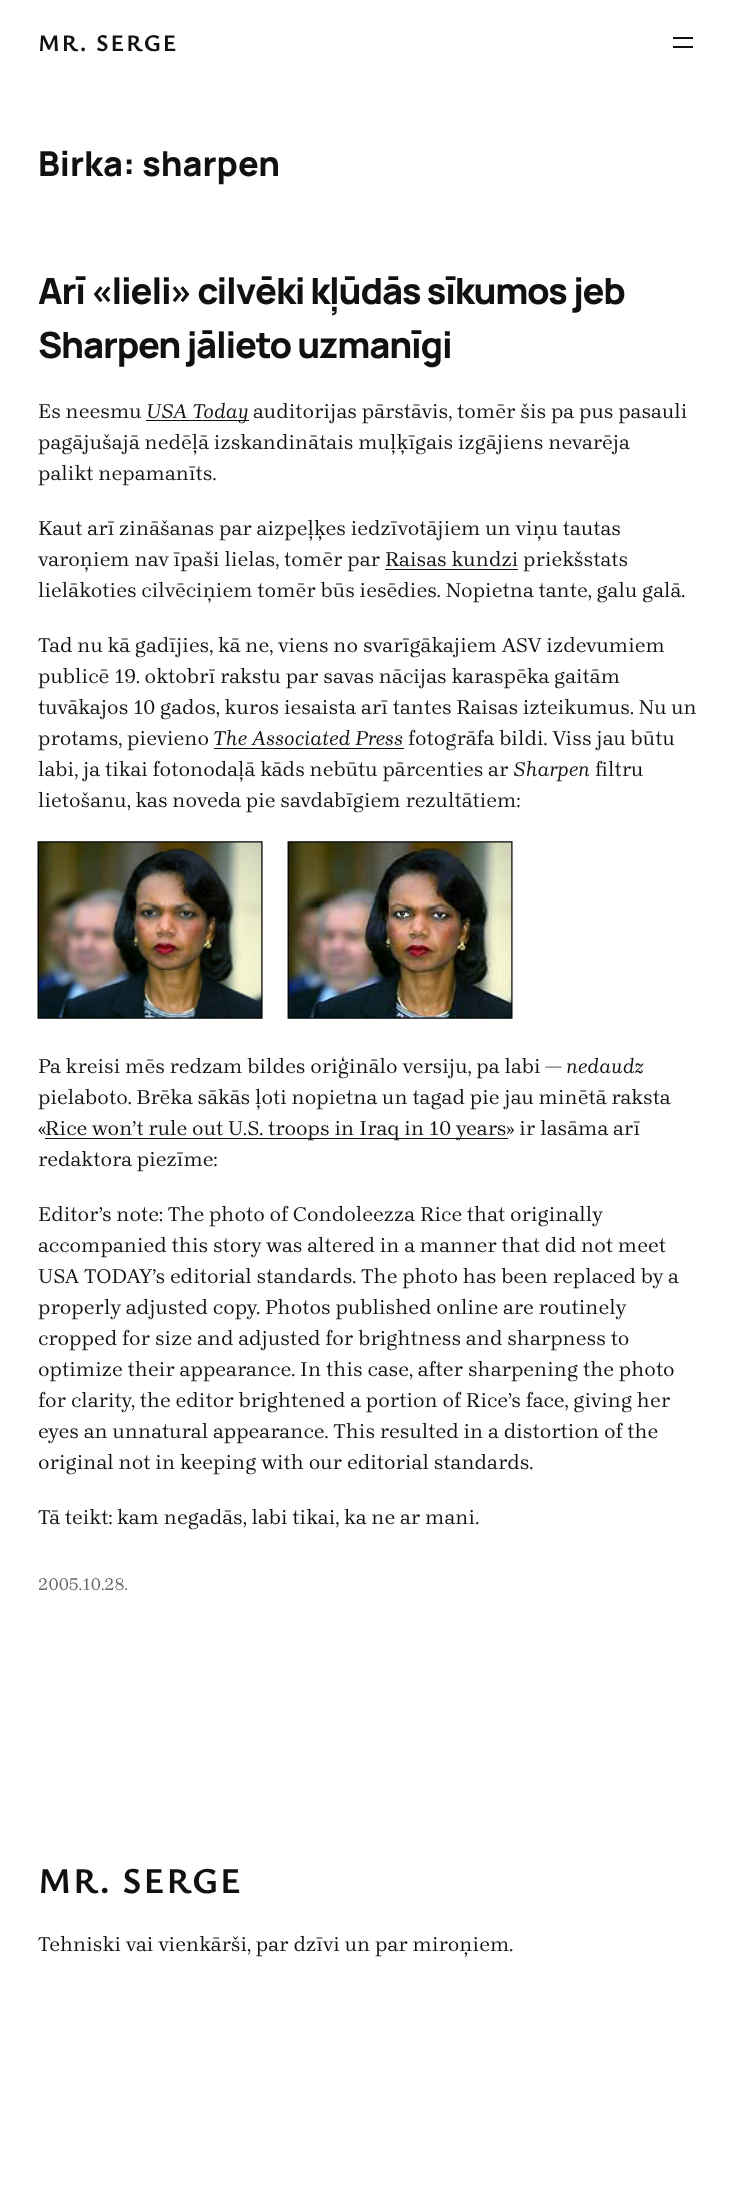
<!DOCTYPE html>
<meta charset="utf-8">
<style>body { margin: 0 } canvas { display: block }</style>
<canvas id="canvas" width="735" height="2188"></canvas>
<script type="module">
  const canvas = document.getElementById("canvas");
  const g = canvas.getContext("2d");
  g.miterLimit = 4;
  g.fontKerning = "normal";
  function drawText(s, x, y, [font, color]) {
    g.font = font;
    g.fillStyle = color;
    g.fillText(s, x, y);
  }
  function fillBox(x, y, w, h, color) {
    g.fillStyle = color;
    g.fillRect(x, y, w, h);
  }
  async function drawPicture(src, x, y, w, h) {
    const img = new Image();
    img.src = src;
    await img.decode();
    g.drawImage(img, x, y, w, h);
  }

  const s1 = ["bold 23.75px Ysabeau Office", "#111111"];
  const s2 = ["800 34.25px Manrope", "#111111"];
  const s3 = ["800 36.25px Manrope", "#111111"];
  const s4 = ["20.65px 'Brygada 1918'", "#111111"];
  const s5 = ["italic 20.65px 'Brygada 1918'", "#111111"];
  const s6 = ["17.5px 'Brygada 1918'", "#686868"];
  const s7 = ["bold 36.25px Ysabeau Office", "#111111"];

  fillBox(0, 0, 735, 2188, "#FFFFFF");
  g.letterSpacing = "2px";
  drawText("MR. SERGE", 38, 51, s1);
  fillBox(673, 37, 20, 2, "#111111");
  fillBox(673, 46, 20, 2, "#111111");
  g.letterSpacing = "0px";
  drawText("Birka: sharpen", 38, 176, s2);
  g.letterSpacing = "-1.2px";
  drawText("Arī «lieli» cilvēki kļūdās sīkumos jeb", 38, 304, s3);
  drawText("Sharpen jālieto uzmanīgi", 38, 358, s3);
  g.letterSpacing = "0px";
  drawText("Es neesmu", 38, 418, s4);
  fillBox(146, 420, 103, 1, "#111111");
  drawText("USA Today", 146, 418, s5);
  drawText("auditorijas pārstāvis, tomēr šis pa pus pasauli", 253, 418, s4);
  drawText("pagājušajā nedēļā izskandinātais muļķīgais izgājiens nevarēja", 38, 449, s4);
  drawText("palikt nepamanīts.", 38, 480, s4);
  drawText("Kaut arī zināšanas par aizpeļķes iedzīvotājiem un viņu tautas", 38, 535, s4);
  drawText("varoņiem nav īpaši lielas, tomēr par Raisas kundzi priekšstats", 38, 566, s4);
  fillBox(385, 569, 133, 1, "#111111");
  drawText("lielākoties cilvēciņiem tomēr būs iesēdies. Nopietna tante, galu galā.", 38, 597, s4);
  drawText("Tad nu kā gadījies, kā ne, viens no svarīgākajiem ASV izdevumiem", 38, 652, s4);
  drawText("publicē 19. oktobrī rakstu par savas nācijas karaspēka gaitām", 38, 683, s4);
  drawText("tuvākajos 10 gados, kuros iesaista arī tantes Raisas izteikumus. Nu un", 38, 714, s4);
  drawText("protams, pievieno", 38, 745, s4);
  drawText("The Associated Press", 213, 745, s5);
  fillBox(214, 748, 190, 1, "#111111");
  drawText("fotogrāfa bildi. Viss jau būtu", 408, 745, s4);
  drawText("labi, ja tikai fotonodaļā kāds nebūtu pārcenties ar", 38, 776, s4);
  drawText("Sharpen", 513, 776, s5);
  drawText("filtru", 595, 776, s4);
  drawText("lietošanu, kas noveda pie savdabīgiem rezultātiem:", 38, 807, s4);
  await drawPicture("pic1.png", 37, 841, 476, 178);
  drawText("Pa kreisi mēs redzam bildes oriģinālo versiju, pa labi —", 38, 1073, s4);
  drawText("nedaudz", 566, 1073, s5);
  drawText("pielaboto. Brēka sākās ļoti nopietna un tagad pie jau minētā raksta", 38, 1104, s4);
  drawText("«", 38, 1135, s4);
  fillBox(45, 1138, 463, 1, "#111111");
  drawText("Rice won’t rule out U.S. troops in Iraq in 10 years» ir lasāma arī", 45, 1135, s4);
  drawText("redaktora piezīme:", 38, 1166, s4);
  drawText("Editor’s note: The photo of Condoleezza Rice that originally", 38, 1221, s4);
  drawText("accompanied this story was altered in a manner that did not meet", 38, 1252, s4);
  drawText("USA TODAY’s editorial standards. The photo has been replaced by a", 38, 1283, s4);
  drawText("properly adjusted copy. Photos published online are routinely", 38, 1314, s4);
  drawText("cropped for size and adjusted for brightness and sharpness to", 38, 1345, s4);
  drawText("optimize their appearance. In this case, after sharpening the photo", 38, 1376, s4);
  drawText("for clarity, the editor brightened a portion of Rice’s face, giving her", 38, 1407, s4);
  drawText("eyes an unnatural appearance. This resulted in a distortion of the", 38, 1438, s4);
  drawText("original not in keeping with our editorial standards.", 38, 1469, s4);
  drawText("Tā teikt: kam negadās, labi tikai, ka ne ar mani.", 38, 1524, s4);
  drawText("2005.10.28.", 38, 1590, s6);
  g.letterSpacing = "2px";
  drawText("MR. SERGE", 38, 1893, s7);
  g.letterSpacing = "0px";
  drawText("Tehniski vai vienkārši, par dzīvi un par miroņiem.", 38, 1951, s4);
</script>
